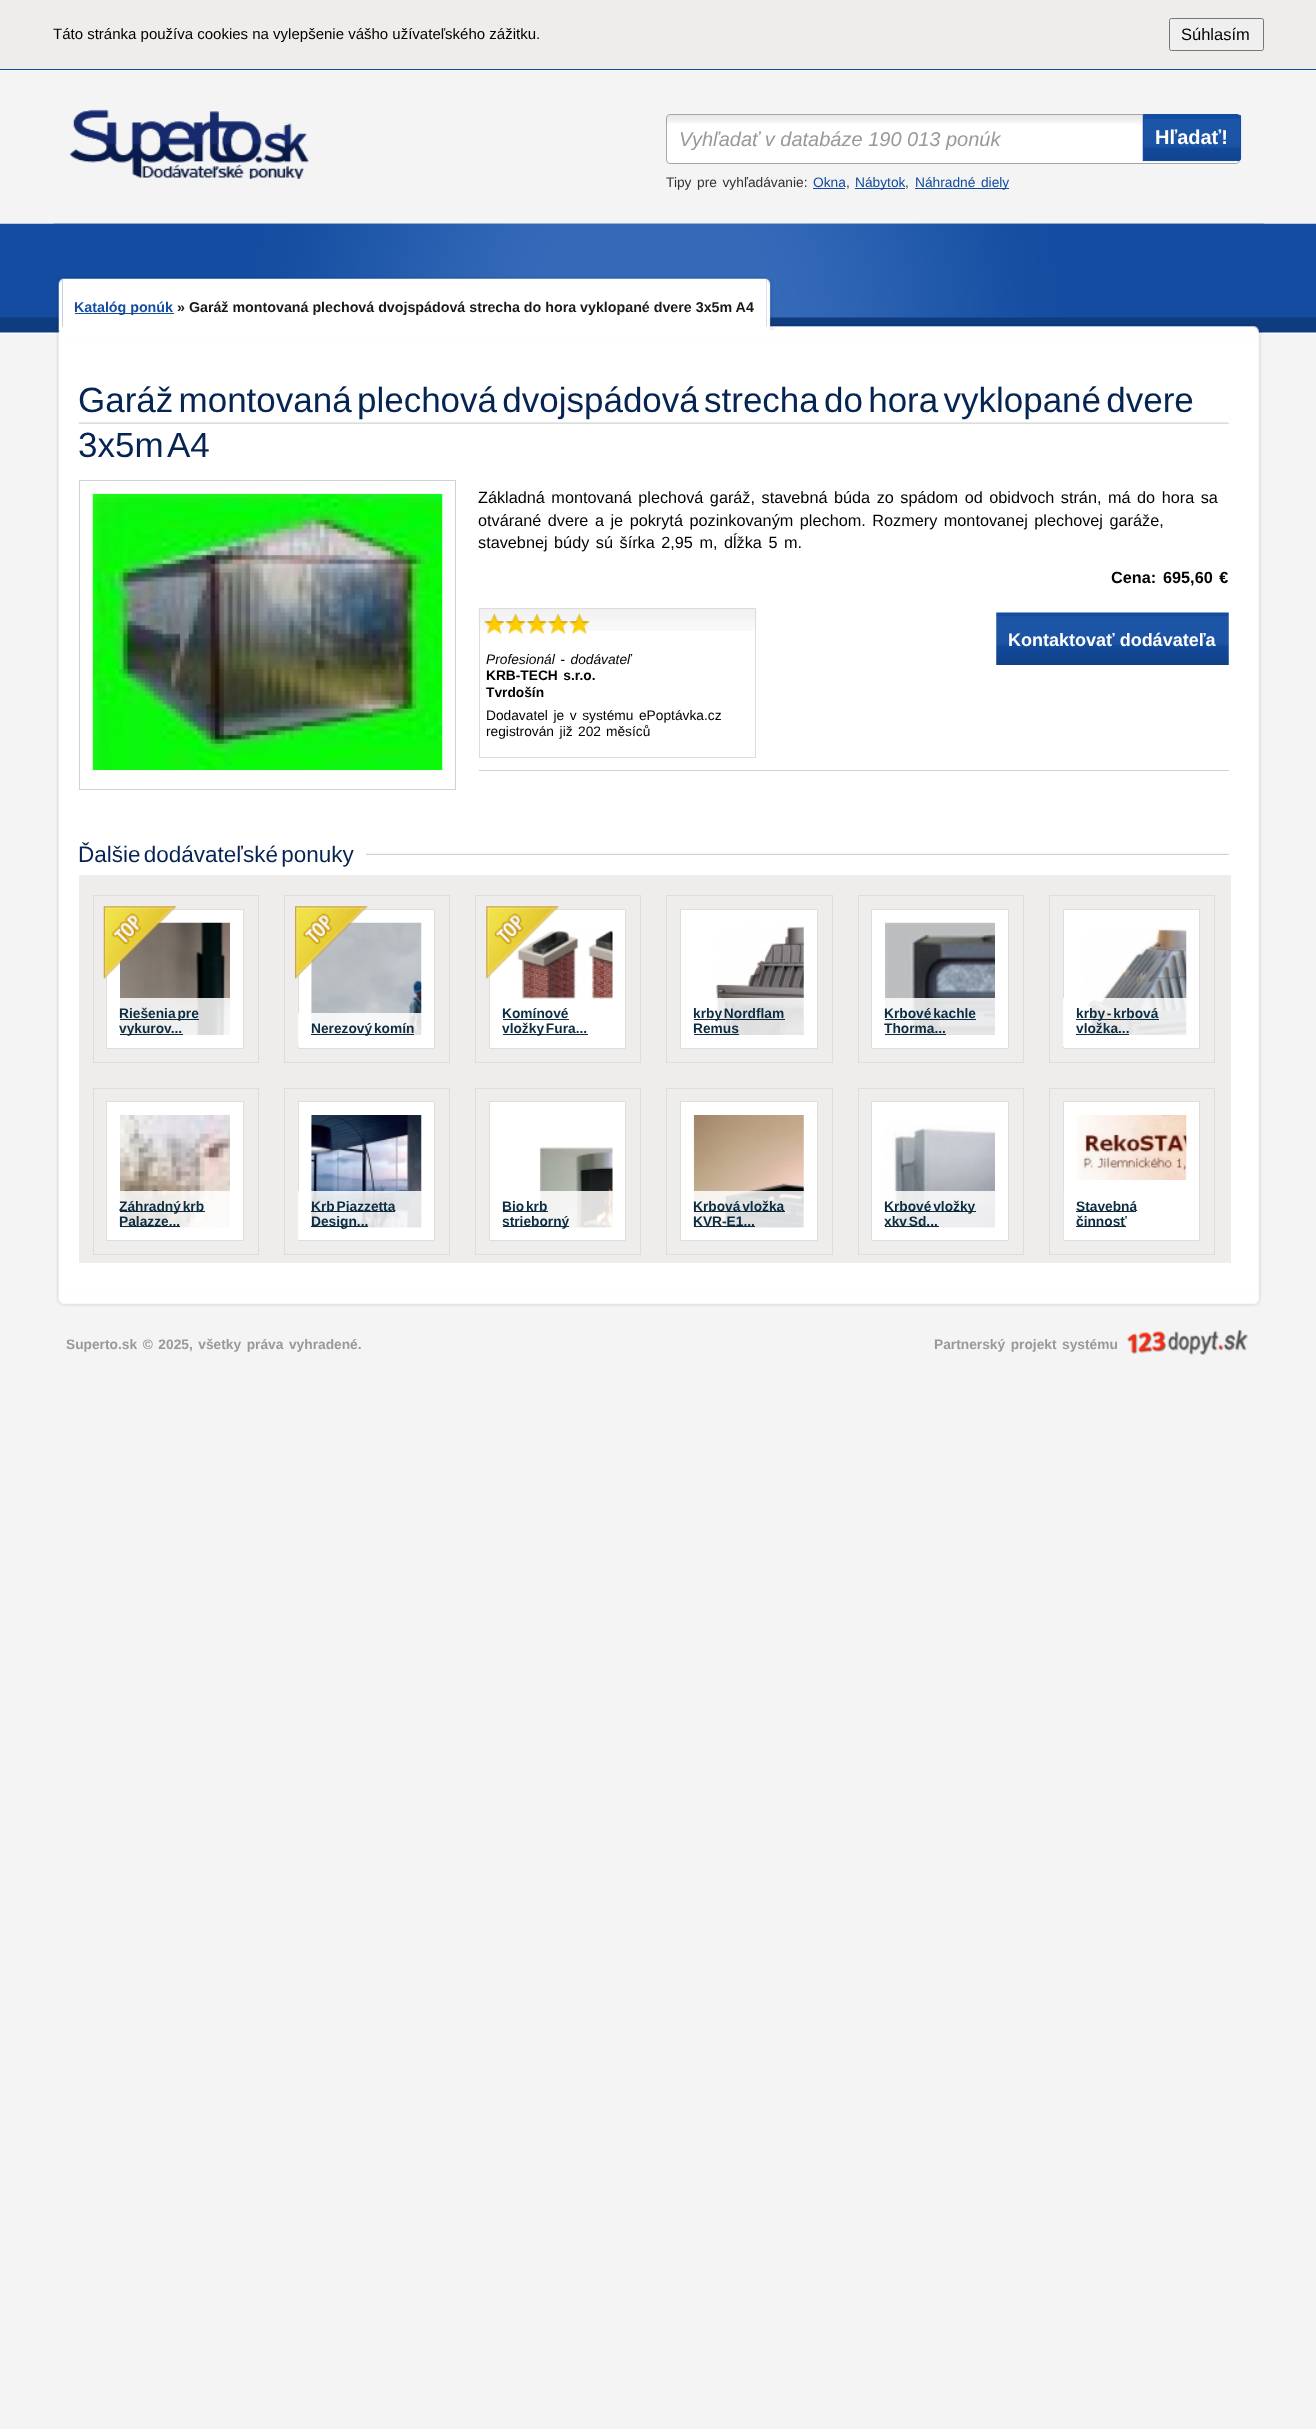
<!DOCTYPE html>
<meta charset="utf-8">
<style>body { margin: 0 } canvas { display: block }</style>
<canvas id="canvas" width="1316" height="2429"></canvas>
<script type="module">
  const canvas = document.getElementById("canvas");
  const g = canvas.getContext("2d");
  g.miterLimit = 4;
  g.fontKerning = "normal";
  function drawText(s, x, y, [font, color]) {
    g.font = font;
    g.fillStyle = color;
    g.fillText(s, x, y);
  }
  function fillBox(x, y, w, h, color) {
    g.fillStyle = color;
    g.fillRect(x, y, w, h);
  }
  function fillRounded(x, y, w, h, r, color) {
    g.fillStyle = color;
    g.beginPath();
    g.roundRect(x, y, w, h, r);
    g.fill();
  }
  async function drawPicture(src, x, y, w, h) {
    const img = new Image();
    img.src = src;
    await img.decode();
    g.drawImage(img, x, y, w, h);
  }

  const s1 = ["15px Liberation Sans", "#000000"];
  const s2 = ["16.5px Liberation Sans", "#000000"];
  const s3 = ["italic 20px Liberation Sans", "#999999"];
  const s4 = ["bold 20px Liberation Sans", "#FFFFFF"];
  const s5 = ["13.75px Liberation Sans", "#333333"];
  const s6 = ["13.75px Liberation Sans", "#134CA0"];
  const s7 = ["bold 14.25px Liberation Sans", "#134CA0"];
  const s8 = ["bold 14.25px Liberation Sans", "#191919"];
  const s9 = ["35px Liberation Sans", "#052452"];
  const s10 = ["16.25px Liberation Sans", "#000000"];
  const s11 = ["bold 16.25px Liberation Sans", "#000000"];
  const s12 = ["bold 18px Liberation Sans", "#FFFFFF"];
  const s13 = ["italic 13.75px Liberation Sans", "#000000"];
  const s14 = ["bold 13.75px Liberation Sans", "#000000"];
  const s15 = ["13.75px Liberation Sans", "#000000"];
  const s16 = ["22.5px Liberation Sans", "#052452"];
  const s17 = ["bold 13.75px Liberation Sans", "#0C2C40"];
  const s18 = ["bold 13.75px Liberation Sans", "#999999"];

  fillBox(0, 0, 1316, 2429, "#F5F4F4");
  fillBox(0, 0, 1316, 69, "#EFECEC");
  fillBox(0, 69, 1316, 1, "#134CA0");
  drawText("Táto stránka používa cookies na vylepšenie vášho užívateľského zážitku.", 53, 39, s1);
  g.fillStyle = "#EFEFEF";
  g.beginPath();
  g.roundRect(1169.5, 18.5, 94, 32, 2);
  g.fill();
  g.strokeStyle = "#767676";
  g.stroke();
  drawText("Súhlasím", 1181, 40, s2);
  await drawPicture("pic1.png", 69, 109, 240, 70);
  fillRounded(666, 114, 574, 50, 4, "#FFFFFF");
  await drawPicture("pic2.png", 666, 115, 477, 9);
  g.beginPath();
  g.roundRect(666.5, 114.5, 573, 49, 3.5);
  g.strokeStyle = "#A6A6A6";
  g.stroke();
  g.save();
  g.beginPath();
  g.rect(680, 128, 444, 22);
  g.clip();
  drawText("Vyhľadať v databáze 190 013 ponúk", 679, 146, s3);
  g.restore();
  await drawPicture("pic3.png", 1142, 115, 100, 47);
  g.beginPath();
  g.roundRect(1143.5, 114.5, 97, 46, [0, 3.5, 3.5, 0]);
  g.strokeStyle = "#134CA0";
  g.stroke();
  drawText("Hľadať!", 1155, 144, s4);
  g.wordSpacing = "1.75px";
  drawText("Tipy pre vyhľadávanie:", 666, 187, s5);
  g.wordSpacing = "0px";
  drawText("Okna", 813, 187, s6);
  fillBox(813, 188, 32, 1, "#134CA0");
  drawText(",", 846, 187, s5);
  fillBox(855, 188, 50, 1, "#134CA0");
  drawText("Nábytok", 855, 187, s6);
  drawText(",", 905, 187, s5);
  fillBox(915, 188, 94, 1, "#134CA0");
  g.wordSpacing = "1.75px";
  drawText("Náhradné diely", 915, 187, s6);
  fillBox(0, 332, 1316, 2, "#FFFFFF");
  await drawPicture("pic4.png", 0, 223, 1316, 110);
  await drawPicture("pic5.png", 53, 223, 1211, 111);
  await drawPicture("pic10.png", 56, 324, 1206, 12);
  await drawPicture("pic6.png", 62, 276, 705, 52);
  await drawPicture("pic7.png", 56, 277, 7, 53);
  fillBox(75, 313, 99, 1, "#134CA0");
  g.wordSpacing = "0px";
  drawText("Katalóg ponúk", 74, 312, s7);
  drawText("» Garáž montovaná plechová dvojspádová strecha do hora vyklopané dvere 3x5m A4", 177, 312, s8);
  await drawPicture("pic8.png", 766, 277, 9, 53);
  await drawPicture("pic9.png", 56, 336, 1206, 958);
  await drawPicture("pic11.png", 78, 422, 1151, 2);
  g.wordSpacing = "-4.5px";
  drawText("Garáž montovaná plechová dvojspádová strecha do hora vyklopané dvere", 78, 412, s9);
  drawText("3x5m A4", 78, 457, s9);
  g.strokeStyle = "#D2D2D2";
  g.strokeRect(79.5, 480.5, 376, 309);
  await drawPicture("pic12.png", 92, 493, 351, 277);
  fillBox(479, 770, 750, 1, "#D2D2D2");
  g.wordSpacing = "2px";
  drawText("Základná montovaná plechová garáž, stavebná búda zo spádom od obidvoch strán, má do hora sa", 478, 503, s10);
  drawText("otvárané dvere a je pokrytá pozinkovaným plechom. Rozmery montovanej plechovej garáže,", 478, 526, s10);
  drawText("stavebnej búdy sú šírka 2,95 m, dĺžka 5 m.", 478, 548, s10);
  g.wordSpacing = "0px";
  drawText("Cena:", 1111, 583, s11);
  g.wordSpacing = "2px";
  drawText("695,60 €", 1163, 583, s11);
  await drawPicture("pic13.png", 996, 612, 233, 53);
  fillBox(1215, 646, 1, 1, "#134CA0");
  g.wordSpacing = "0px";
  drawText("Kontaktovať dodávateľa", 1008, 646, s12);
  await drawPicture("pic14.png", 478, 608, 279, 23);
  g.strokeStyle = "#DFDCDC";
  g.strokeRect(479.5, 608.5, 276, 149);
  await drawPicture("pic15.png", 484, 613, 106, 21);
  g.wordSpacing = "1.75px";
  drawText("Profesionál - dodávateľ", 486, 664, s13);
  drawText("KRB-TECH s.r.o.", 486, 680, s14);
  g.wordSpacing = "0px";
  drawText("Tvrdošín", 486, 697, s14);
  g.wordSpacing = "1.75px";
  drawText("Dodavatel je v systému ePoptávka.cz", 486, 720, s15);
  drawText("registrován již", 486, 736, s15);
  g.wordSpacing = "0px";
  drawText("202", 578, 736, s15);
  drawText("měsíců", 606, 736, s15);
  await drawPicture("pic16.png", 78, 853, 1151, 2);
  fillBox(79, 853, 287, 2, "#FFFFFF");
  g.wordSpacing = "-3px";
  drawText("Ďalšie dodávateľské ponuky", 78, 862, s16);
  fillBox(79, 875, 1152, 388, "#EFECEC");
  g.strokeRect(93.5, 895.5, 165, 167);
  g.fillStyle = "#FFFFFF";
  g.beginPath();
  g.rect(106.5, 909.5, 137, 139);
  g.fill();
  g.stroke();
  await drawPicture("pic18.png", 120, 922, 110, 113);
  await drawPicture("pic17.png", 103, 906, 74, 73);
  fillBox(120, 998, 110, 37, "rgba(255, 255, 255, 0.85)");
  fillBox(120, 1019, 79, 1, "#0C2C40");
  g.wordSpacing = "-2px";
  drawText("Riešenia pre", 119, 1018, s17);
  fillBox(120, 1034, 63, 1, "#0C2C40");
  g.wordSpacing = "0px";
  drawText("vykurov...", 119, 1033, s17);
  g.strokeRect(284.5, 895.5, 165, 167);
  g.fillStyle = "#FFFFFF";
  g.beginPath();
  g.rect(298.5, 909.5, 136, 139);
  g.fill();
  g.stroke();
  await drawPicture("pic20.png", 311, 922, 111, 113);
  await drawPicture("pic19.png", 295, 906, 73, 73);
  fillBox(298, 1013, 124, 34, "rgba(255, 255, 255, 0.85)");
  fillBox(311, 1034, 103, 1, "#0C2C40");
  g.wordSpacing = "-2px";
  drawText("Nerezový komín", 311, 1033, s17);
  g.strokeRect(475.5, 895.5, 165, 167);
  g.fillStyle = "#FFFFFF";
  g.beginPath();
  g.rect(489.5, 909.5, 136, 139);
  g.fill();
  g.stroke();
  await drawPicture("pic22.png", 517, 930, 96, 69);
  await drawPicture("pic21.png", 486, 906, 73, 73);
  fillBox(523, 998, 90, 1, "rgba(255, 255, 255, 0.22)");
  g.wordSpacing = "0px";
  drawText("Komínové", 502, 1018, s17);
  fillBox(503, 1019, 66, 1, "#0C2C40");
  fillBox(503, 1034, 85, 1, "#0C2C40");
  g.wordSpacing = "-2px";
  drawText("vložky Fura...", 502, 1033, s17);
  g.strokeRect(666.5, 895.5, 166, 167);
  g.fillStyle = "#FFFFFF";
  g.beginPath();
  g.rect(680.5, 909.5, 137, 139);
  g.fill();
  g.stroke();
  await drawPicture("pic23.png", 716, 926, 88, 109);
  fillBox(717, 998, 87, 37, "rgba(255, 255, 255, 0.85)");
  fillBox(694, 1019, 91, 1, "#0C2C40");
  drawText("krby Nordflam", 693, 1018, s17);
  g.wordSpacing = "0px";
  drawText("Remus", 693, 1033, s17);
  fillBox(694, 1034, 45, 1, "#0C2C40");
  g.strokeRect(858.5, 895.5, 165, 167);
  g.fillStyle = "#FFFFFF";
  g.beginPath();
  g.rect(871.5, 909.5, 137, 139);
  g.fill();
  g.stroke();
  await drawPicture("pic24.png", 885, 922, 110, 113);
  fillBox(885, 998, 110, 37, "rgba(255, 255, 255, 0.85)");
  g.wordSpacing = "-2px";
  drawText("Krbové kachle", 884, 1018, s17);
  fillBox(885, 1019, 91, 1, "#0C2C40");
  g.wordSpacing = "0px";
  drawText("Thorma...", 884, 1033, s17);
  fillBox(885, 1034, 61, 1, "#0C2C40");
  g.strokeRect(1049.5, 895.5, 165, 167);
  g.fillStyle = "#FFFFFF";
  g.beginPath();
  g.rect(1063.5, 909.5, 136, 139);
  g.fill();
  g.stroke();
  await drawPicture("pic25.png", 1085, 927, 102, 108);
  fillBox(1063, 998, 124, 49, "rgba(255, 255, 255, 0.85)");
  fillBox(1076, 1019, 83, 1, "#0C2C40");
  g.wordSpacing = "-2px";
  drawText("krby - krbová", 1076, 1018, s17);
  g.wordSpacing = "0px";
  drawText("vložka...", 1076, 1033, s17);
  fillBox(1076, 1034, 53, 1, "#0C2C40");
  g.strokeRect(93.5, 1088.5, 165, 166);
  g.fillStyle = "#FFFFFF";
  g.beginPath();
  g.rect(106.5, 1101.5, 137, 139);
  g.fill();
  g.stroke();
  await drawPicture("pic26.png", 120, 1115, 110, 113);
  fillBox(120, 1191, 110, 37, "rgba(255, 255, 255, 0.85)");
  fillBox(120, 1211, 85, 1, "#0C2C40");
  g.wordSpacing = "-2px";
  drawText("Záhradný krb", 119, 1211, s17);
  fillBox(120, 1226, 60, 1, "#0C2C40");
  g.wordSpacing = "0px";
  drawText("Palazze...", 119, 1226, s17);
  g.strokeRect(284.5, 1088.5, 165, 166);
  g.fillStyle = "#FFFFFF";
  g.beginPath();
  g.rect(298.5, 1101.5, 136, 139);
  g.fill();
  g.stroke();
  await drawPicture("pic27.png", 311, 1115, 111, 113);
  fillBox(298, 1191, 124, 49, "rgba(255, 255, 255, 0.85)");
  fillBox(311, 1211, 84, 1, "#0C2C40");
  g.wordSpacing = "-2px";
  drawText("Krb Piazzetta", 311, 1211, s17);
  fillBox(311, 1226, 57, 1, "#0C2C40");
  g.wordSpacing = "0px";
  drawText("Design...", 311, 1226, s17);
  g.strokeRect(475.5, 1088.5, 165, 166);
  g.fillStyle = "#FFFFFF";
  g.beginPath();
  g.rect(489.5, 1101.5, 136, 139);
  g.fill();
  g.stroke();
  await drawPicture("pic28.png", 539, 1147, 74, 81);
  fillBox(539, 1191, 74, 37, "rgba(255, 255, 255, 0.85)");
  fillBox(503, 1211, 45, 1, "#0C2C40");
  g.wordSpacing = "-2px";
  drawText("Bio krb", 502, 1211, s17);
  fillBox(503, 1226, 66, 1, "#0C2C40");
  g.wordSpacing = "0px";
  drawText("strieborný", 502, 1226, s17);
  g.strokeRect(666.5, 1088.5, 166, 166);
  g.fillStyle = "#FFFFFF";
  g.beginPath();
  g.rect(680.5, 1101.5, 137, 139);
  g.fill();
  g.stroke();
  await drawPicture("pic29.png", 693, 1115, 111, 113);
  fillBox(693, 1191, 111, 37, "rgba(255, 255, 255, 0.85)");
  fillBox(694, 1211, 91, 1, "#0C2C40");
  g.wordSpacing = "-2px";
  drawText("Krbová vložka", 693, 1211, s17);
  g.wordSpacing = "0px";
  drawText("KVR-E1...", 693, 1226, s17);
  fillBox(694, 1226, 61, 1, "#0C2C40");
  g.strokeRect(858.5, 1088.5, 165, 166);
  g.fillStyle = "#FFFFFF";
  g.beginPath();
  g.rect(871.5, 1101.5, 137, 139);
  g.fill();
  g.stroke();
  await drawPicture("pic30.png", 885, 1123, 110, 105);
  fillBox(894, 1191, 101, 37, "rgba(255, 255, 255, 0.85)");
  fillBox(885, 1211, 91, 1, "#0C2C40");
  g.wordSpacing = "-2px";
  drawText("Krbové vložky", 884, 1211, s17);
  fillBox(885, 1226, 54, 1, "#0C2C40");
  drawText("xkv Sd...", 884, 1226, s17);
  g.strokeRect(1049.5, 1088.5, 165, 166);
  g.fillStyle = "#FFFFFF";
  g.beginPath();
  g.rect(1063.5, 1101.5, 136, 139);
  g.fill();
  g.stroke();
  await drawPicture("pic31.png", 1076, 1115, 111, 65);
  await drawPicture("pic32.png", 1063, 1191, 1, 49);
  fillBox(1076, 1211, 60, 1, "#0C2C40");
  g.wordSpacing = "0px";
  drawText("Stavebná", 1076, 1211, s17);
  fillBox(1076, 1226, 50, 1, "#0C2C40");
  drawText("činnosť", 1076, 1226, s17);
  await drawPicture("pic33.png", 56, 1294, 1206, 13);
  g.wordSpacing = "1.75px";
  drawText("Superto.sk © 2025, všetky práva vyhradené.", 66, 1349, s18);
  drawText("Partnerský projekt systému", 934, 1349, s18);
  await drawPicture("pic34.png", 1127, 1329, 121, 26);
</script>
